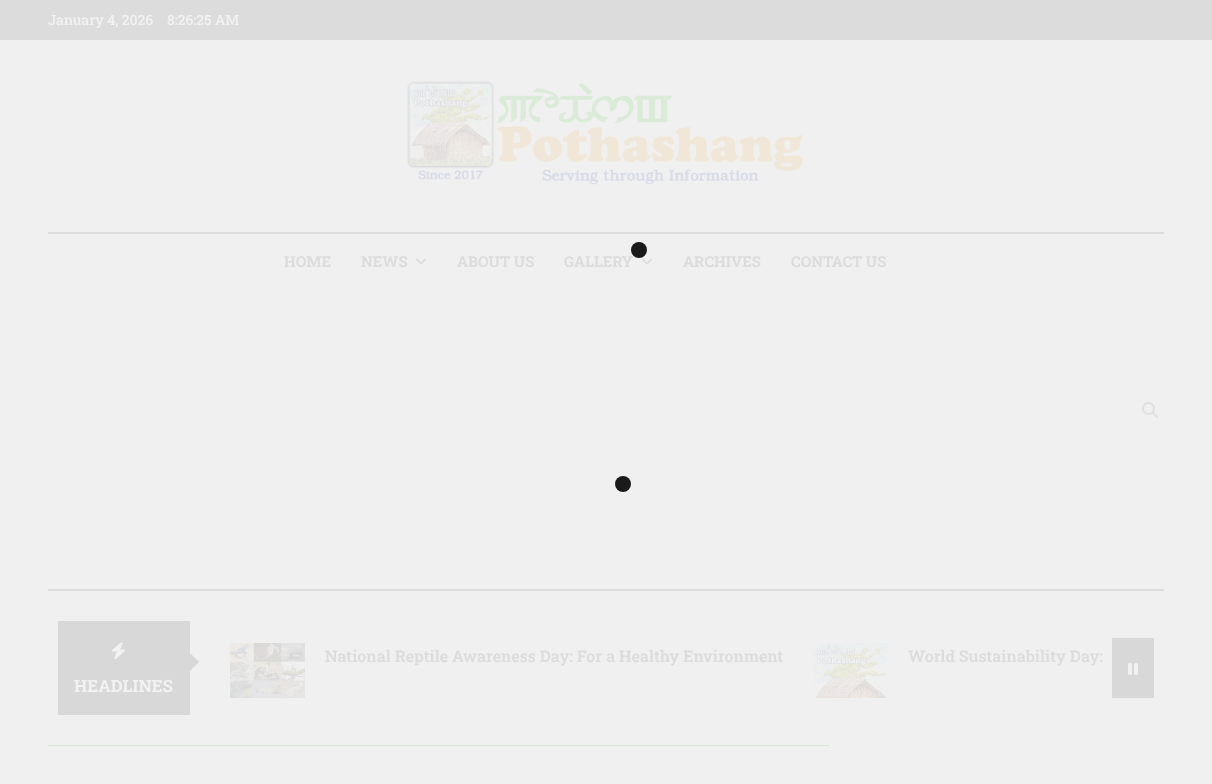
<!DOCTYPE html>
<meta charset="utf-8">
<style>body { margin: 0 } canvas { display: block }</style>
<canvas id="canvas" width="1212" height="784"></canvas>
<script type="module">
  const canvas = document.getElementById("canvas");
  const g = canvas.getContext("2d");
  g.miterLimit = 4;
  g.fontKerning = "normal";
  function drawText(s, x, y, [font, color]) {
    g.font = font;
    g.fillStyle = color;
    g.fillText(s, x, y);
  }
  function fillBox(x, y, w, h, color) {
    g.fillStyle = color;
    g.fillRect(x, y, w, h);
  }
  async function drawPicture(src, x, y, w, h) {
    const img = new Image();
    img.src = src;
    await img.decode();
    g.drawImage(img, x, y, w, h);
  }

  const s1 = ["500 14px Roboto Slab", "#F2F2F2"];
  const s2 = ["bold 15px Roboto Slab", "#DCDCDC"];
  const s3 = ["600 16.05px Roboto Slab", "#DCDCDC"];
  const s4 = ["bold 17px Roboto Slab", "#F2F2F2"];

  fillBox(0, 0, 1212, 784, "#F0F0F0");
  fillBox(0, 0, 1212, 40, "#DCDCDC");
  drawText("January 4, 2026", 48, 25, s1);
  drawText("8:26:25 AM", 167, 25, s1);
  await drawPicture("pic1.png", 407, 81, 396, 104);
  fillBox(48, 232, 1116, 2, "#DCDCDC");
  fillBox(48, 589, 1116, 2, "#DCDCDC");
  drawText("HOME", 284, 267, s2);
  drawText("NEWS", 361, 267, s2);
  await drawPicture("pic2.png", 415, 258, 11, 7);
  drawText("ABOUT US", 457, 267, s2);
  drawText("GALLERY", 564, 267, s2);
  await drawPicture("pic2.png", 641, 258, 11, 7);
  drawText("ARCHIVES", 683, 267, s2);
  drawText("CONTACT US", 791, 267, s2);
  await drawPicture("pic3.png", 1142, 402, 16, 16);
  g.fillStyle = "#1A1A1A";
  g.beginPath();
  g.arc(639, 250, 8, 0, Math.PI * 2);
  g.fill();
  g.beginPath();
  g.arc(623, 484, 8, 0, Math.PI * 2);
  g.fill();
  await drawPicture("pic4.png", 230, 643, 75, 55);
  drawText("National Reptile Awareness Day: For a Healthy Environment", 325, 662, s3);
  await drawPicture("pic5.png", 813, 643, 75, 55);
  drawText("World Sustainability Day:", 908, 662, s3);
  fillBox(1112, 638, 42, 60, "#D8D8D8");
  await drawPicture("pic6.png", 1128, 663, 10, 12);
  fillBox(58, 621, 132, 94, "#D8D8D8");
  await drawPicture("pic7.png", 112, 642, 13, 18);
  g.beginPath();
  g.moveTo(189, 672);
  g.lineTo(189, 652);
  g.lineTo(199, 662);
  g.closePath();
  g.fill();
  drawText("HEADLINES", 74, 692, s4);
  fillBox(48, 745, 781, 1, "#DBE5DA");
</script>
